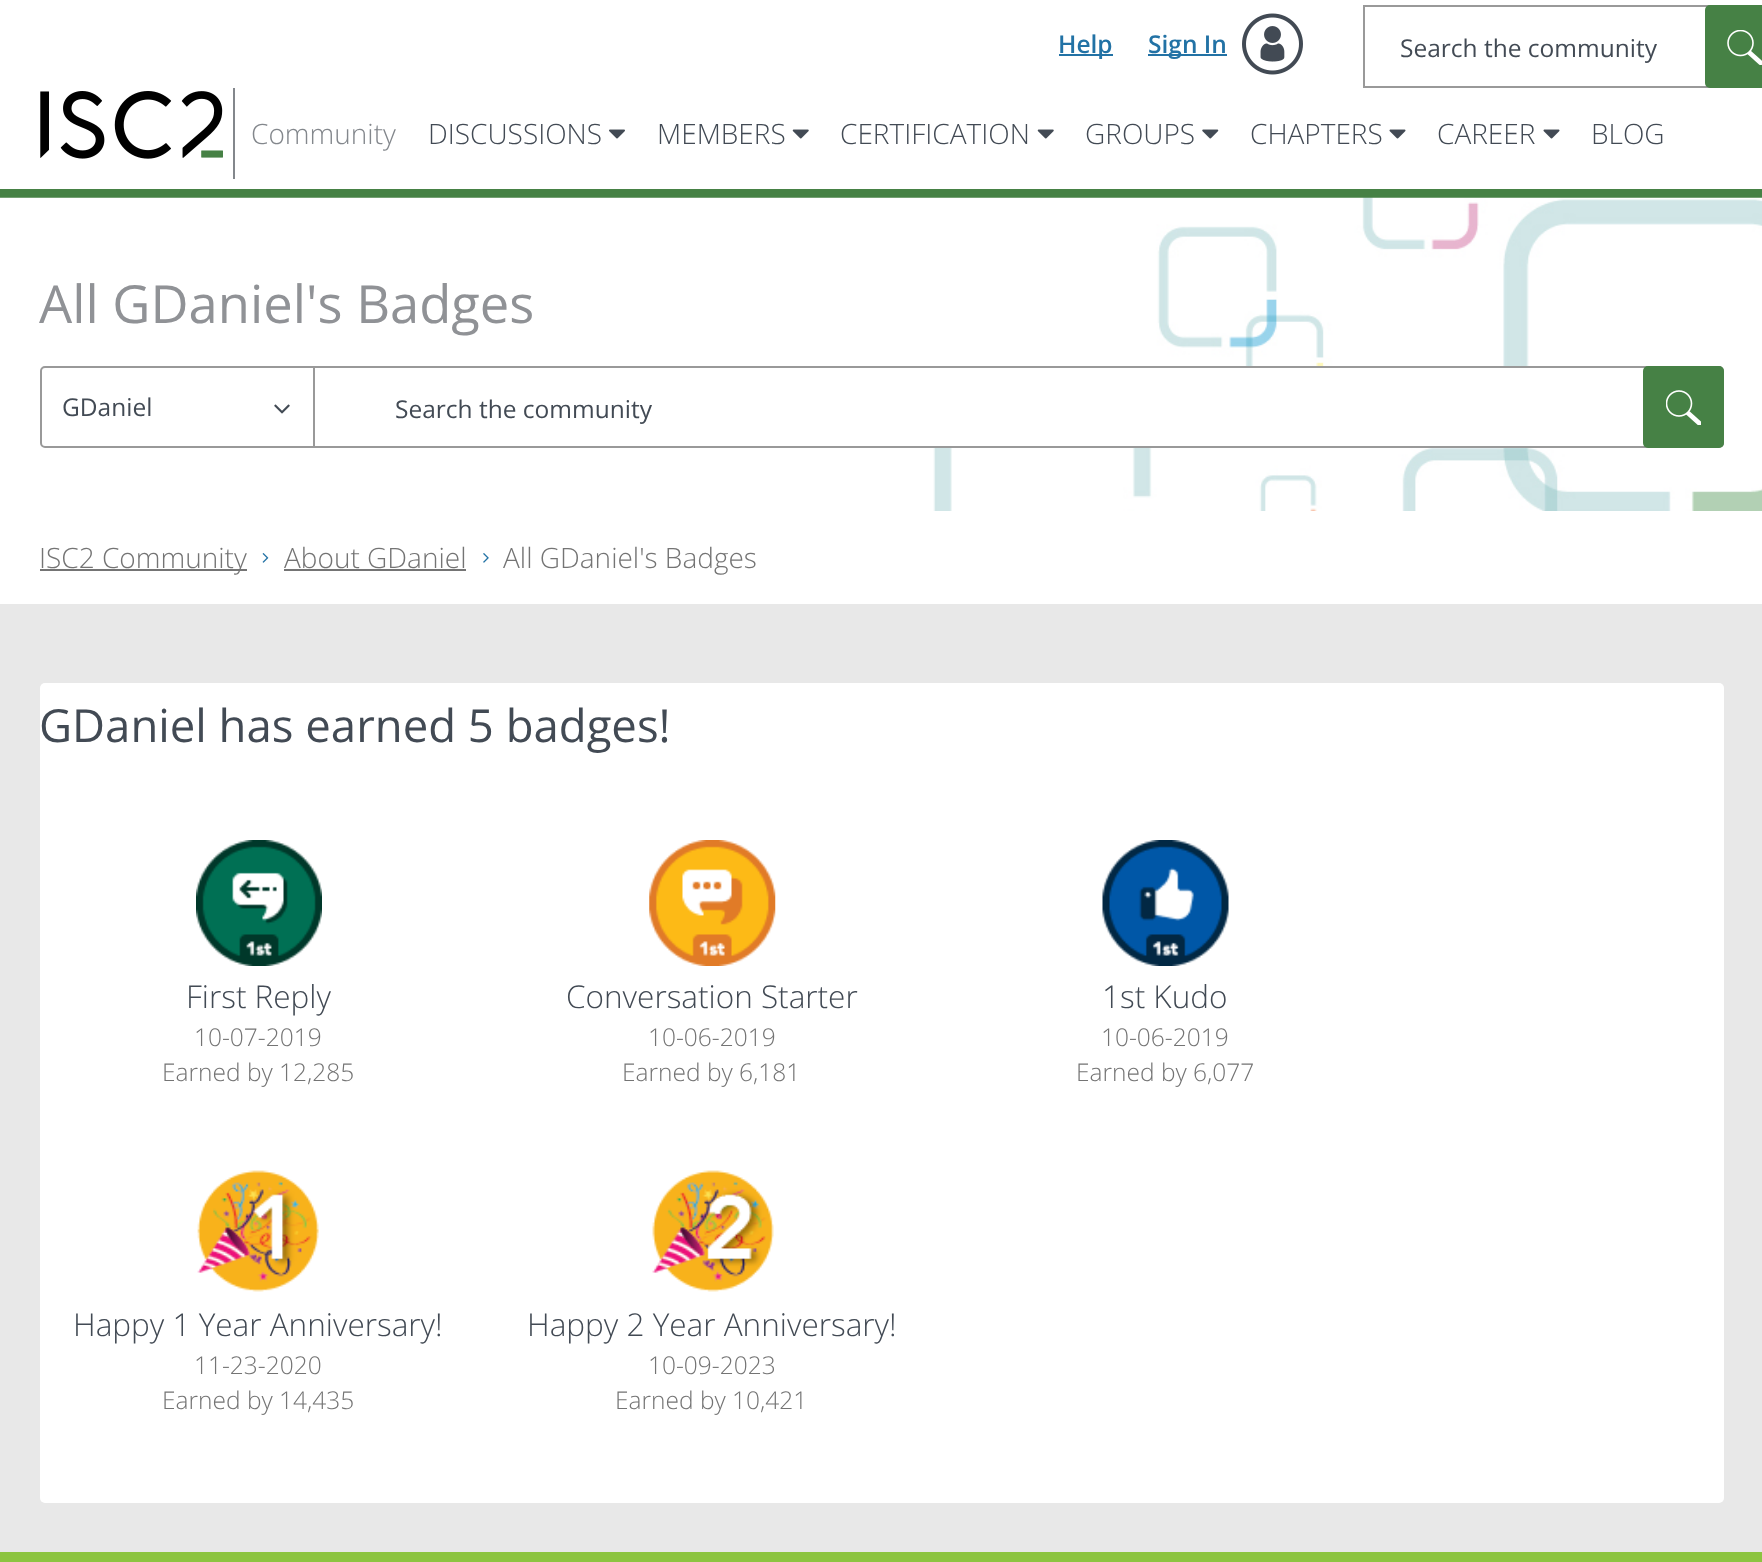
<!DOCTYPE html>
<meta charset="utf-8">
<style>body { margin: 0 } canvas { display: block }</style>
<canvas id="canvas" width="1762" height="1562"></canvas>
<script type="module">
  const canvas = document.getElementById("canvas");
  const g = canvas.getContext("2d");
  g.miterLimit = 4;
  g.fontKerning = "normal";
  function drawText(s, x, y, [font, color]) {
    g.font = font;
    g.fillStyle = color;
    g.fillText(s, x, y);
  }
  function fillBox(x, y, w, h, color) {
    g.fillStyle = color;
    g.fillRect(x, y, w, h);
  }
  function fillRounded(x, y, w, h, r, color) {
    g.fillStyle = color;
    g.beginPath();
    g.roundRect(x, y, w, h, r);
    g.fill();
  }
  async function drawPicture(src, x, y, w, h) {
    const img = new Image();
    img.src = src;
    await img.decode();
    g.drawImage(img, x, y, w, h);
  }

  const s1 = ["600 24.5px Open Sans", "#2272A5"];
  const s2 = ["24.5px Open Sans", "#424A54"];
  const s3 = ["300 28px Open Sans", "#83878C"];
  const s4 = ["300 28px Open Sans", "#424A54"];
  const s5 = ["52.5px Open Sans", "#909296"];
  const s6 = ["300 28px Open Sans", "#747474"];
  const s7 = ["45.5px Open Sans", "#424A54"];
  const s8 = ["300 31.5px Open Sans", "#424A54"];
  const s9 = ["300 24.5px Open Sans", "#747474"];

  fillBox(0, 0, 1762, 1562, "#E8E8E8");
  fillBox(0, 0, 1762, 604, "#FFFFFF");
  fillBox(1059, 54, 54, 2, "#2272A5");
  drawText("Help", 1058, 53, s1);
  fillBox(1148, 54, 79, 2, "#2272A5");
  drawText("Sign In", 1148, 53, s1);
  await drawPicture("pic1.png", 1242, 13, 61, 62);
  g.strokeStyle = "#999999";
  g.lineWidth = 2;
  g.strokeRect(1364, 6, 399, 81);
  drawText("Search the community", 1400, 57, s2);
  fillRounded(1705, 5, 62, 83, 5, "#468145");
  await drawPicture("pic2.png", 1727, 30, 35, 35);
  fillBox(0, 189, 1762, 9, "#468145");
  fillBox(233, 88, 2, 91, "#83878C");
  await drawPicture("pic3.png", 40, 91, 183, 68);
  drawText("Community", 251, 144, s3);
  drawText("DISCUSSIONS", 428, 144, s4);
  await drawPicture("pic4.png", 609, 129, 16, 10);
  drawText("MEMBERS", 657, 144, s4);
  await drawPicture("pic5.png", 792, 129, 17, 10);
  drawText("CERTIFICATION", 840, 144, s4);
  await drawPicture("pic5.png", 1037, 129, 17, 10);
  drawText("GROUPS", 1085, 144, s4);
  await drawPicture("pic6.png", 1202, 129, 17, 10);
  drawText("CHAPTERS", 1250, 144, s4);
  await drawPicture("pic7.png", 1389, 129, 17, 10);
  drawText("CAREER", 1437, 144, s4);
  await drawPicture("pic7.png", 1543, 129, 17, 10);
  drawText("BLOG", 1591, 144, s4);
  await drawPicture("pic8.png", 0, 197, 1762, 314);
  drawText("All GDaniel's Badges", 39, 323, s5);
  g.beginPath();
  g.roundRect(41, 367, 273, 80, [4, 0, 0, 4]);
  g.stroke();
  drawText("GDaniel", 62, 416, s2);
  await drawPicture("pic9.png", 274, 404, 16, 10);
  g.fillStyle = "#FFFFFF";
  g.beginPath();
  g.roundRect(314, 367, 1409, 80, [0, 4, 4, 0]);
  g.fill();
  g.stroke();
  drawText("Search the community", 395, 418, s2);
  fillRounded(1643, 366, 81, 82, 5, "#468145");
  await drawPicture("pic10.png", 1666, 390, 35, 35);
  fillBox(40, 569, 207, 2, "#747474");
  drawText("ISC2 Community", 39, 568, s6);
  await drawPicture("pic11.png", 262, 553, 7, 10);
  drawText("About GDaniel", 284, 568, s6);
  fillBox(284, 569, 182, 2, "#747474");
  await drawPicture("pic12.png", 483, 553, 6, 10);
  drawText("All GDaniel's Badges", 503, 568, s6);
  fillRounded(40, 683, 1684, 820, 5, "#FFFFFF");
  drawText("GDaniel has earned 5 badges!", 39, 742, s7);
  await drawPicture("pic13.png", 196, 840, 126, 126);
  drawText("First Reply", 186, 1008, s8);
  drawText("10-07-2019", 194, 1046, s9);
  drawText("Earned by 12,285", 162, 1081, s9);
  await drawPicture("pic14.png", 649, 840, 127, 126);
  drawText("Conversation Starter", 566, 1008, s8);
  drawText("10-06-2019", 648, 1046, s9);
  drawText("Earned by 6,181", 622, 1081, s9);
  await drawPicture("pic15.png", 1102, 840, 127, 126);
  drawText("1st Kudo", 1102, 1008, s8);
  drawText("10-06-2019", 1101, 1046, s9);
  drawText("Earned by 6,077", 1076, 1081, s9);
  await drawPicture("pic16.png", 197, 1170, 122, 122);
  drawText("Happy 1 Year Anniversary!", 73, 1336, s8);
  drawText("11-23-2020", 194, 1374, s9);
  drawText("Earned by 14,435", 162, 1409, s9);
  await drawPicture("pic17.png", 652, 1170, 122, 122);
  drawText("Happy 2 Year Anniversary!", 527, 1336, s8);
  drawText("10-09-2023", 648, 1374, s9);
  drawText("Earned by 10,421", 615, 1409, s9);
  fillBox(0, 1552, 1762, 10, "#8CC440");
</script>
